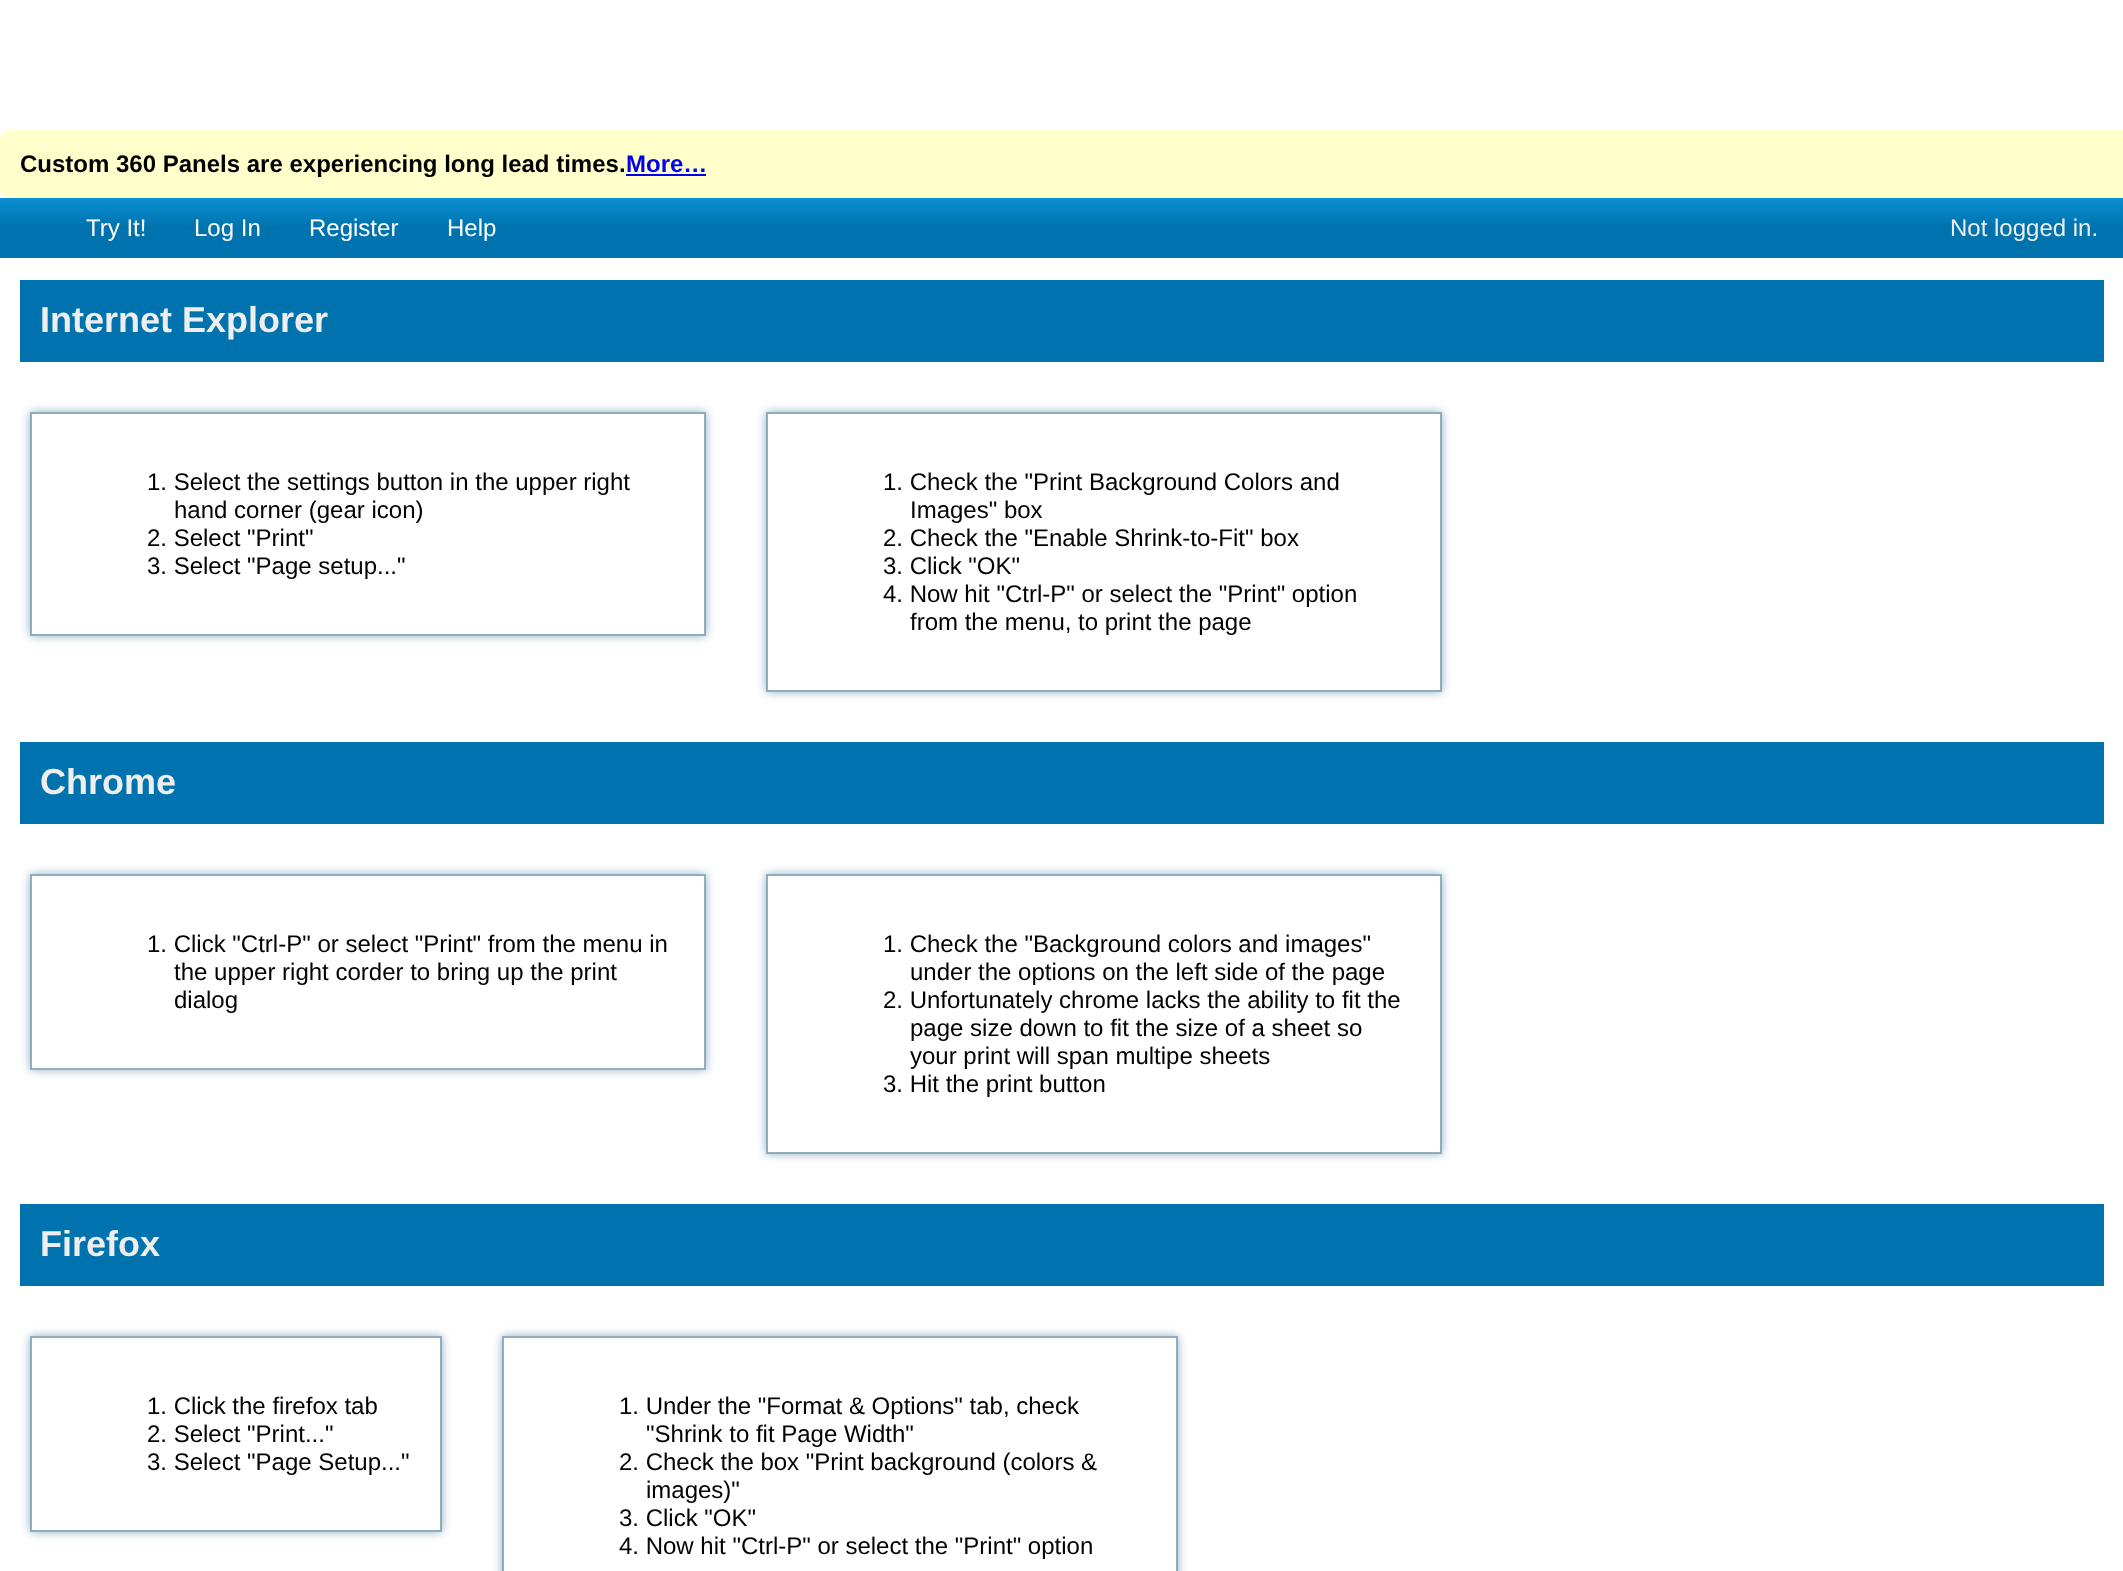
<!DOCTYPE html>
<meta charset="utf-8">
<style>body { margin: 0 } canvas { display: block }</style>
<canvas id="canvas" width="2123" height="1571"></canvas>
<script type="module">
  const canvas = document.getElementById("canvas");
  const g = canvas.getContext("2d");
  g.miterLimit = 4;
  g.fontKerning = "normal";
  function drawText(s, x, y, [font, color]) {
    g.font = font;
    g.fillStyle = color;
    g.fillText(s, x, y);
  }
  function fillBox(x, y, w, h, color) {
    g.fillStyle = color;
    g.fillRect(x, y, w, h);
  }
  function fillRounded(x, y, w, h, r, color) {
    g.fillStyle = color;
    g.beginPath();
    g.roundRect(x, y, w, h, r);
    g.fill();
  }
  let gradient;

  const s1 = ["bold 24px Liberation Sans", "#000000"];
  const s2 = ["bold 24px Liberation Sans", "#0000EE"];
  const s3 = ["24px Liberation Sans", "#FFFFFF"];
  const s4 = ["24px Liberation Sans", "#EEEEEE"];
  const s5 = ["bold 36px Liberation Sans", "#EEEEEE"];
  const s6 = ["24px Liberation Sans", "#000000"];

  fillBox(0, 0, 2123, 1571, "#FFFFFF");
  fillRounded(0, 130, 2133, 68, 10, "#FFFFCC");
  drawText("Custom 360 Panels are experiencing long lead times.", 20, 172, s1);
  drawText("More…", 626, 172, s2);
  fillBox(626, 174, 80, 2, "#0000EE");
  gradient = g.createLinearGradient(1062, 198, 1062, 258);
  gradient.addColorStop(0, "#0B8FD3");
  gradient.addColorStop(0.48, "#0073AE");
  gradient.addColorStop(1, "#0073AE");
  g.fillStyle = gradient;
  g.fillRect(0, 198, 2123, 60);
  drawText("Try It!", 86, 236, s3);
  drawText("Log In", 194, 236, s3);
  drawText("Register", 309, 236, s3);
  drawText("Help", 447, 236, s3);
  drawText("Not logged in.", 1950, 236, s4);
  fillBox(20, 280, 2084, 82, "#0073AE");
  drawText("Internet Explorer", 40, 332, s5);
  g.save();
  g.beginPath();
  g.moveTo(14, 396);
  g.lineTo(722, 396);
  g.lineTo(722, 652);
  g.lineTo(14, 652);
  g.closePath();
  g.moveTo(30, 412);
  g.lineTo(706, 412);
  g.lineTo(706, 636);
  g.lineTo(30, 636);
  g.closePath();
  g.clip("evenodd");
  g.fillStyle = "#8FADBF";
  g.filter = "blur(5px)";
  g.beginPath();
  g.rect(30, 412, 676, 224);
  g.fill();
  g.filter = "none";
  g.restore();
  g.strokeStyle = "#8FADBF";
  g.lineWidth = 2;
  g.strokeRect(31, 413, 674, 222);
  drawText("1. Select the settings button in the upper right", 147, 490, s6);
  drawText("hand corner (gear icon)", 174, 518, s6);
  drawText("2. Select \"Print\"", 147, 546, s6);
  drawText("3. Select \"Page setup...\"", 147, 574, s6);
  g.save();
  g.beginPath();
  g.moveTo(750, 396);
  g.lineTo(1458, 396);
  g.lineTo(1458, 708);
  g.lineTo(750, 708);
  g.closePath();
  g.moveTo(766, 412);
  g.lineTo(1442, 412);
  g.lineTo(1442, 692);
  g.lineTo(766, 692);
  g.closePath();
  g.clip("evenodd");
  g.fillStyle = "#8FADBF";
  g.filter = "blur(5px)";
  g.beginPath();
  g.rect(766, 412, 676, 280);
  g.fill();
  g.filter = "none";
  g.restore();
  g.strokeRect(767, 413, 674, 278);
  drawText("1. Check the \"Print Background Colors and", 883, 490, s6);
  drawText("Images\" box", 910, 518, s6);
  drawText("2. Check the \"Enable Shrink-to-Fit\" box", 883, 546, s6);
  drawText("3. Click \"OK\"", 883, 574, s6);
  drawText("4. Now hit \"Ctrl-P\" or select the \"Print\" option", 883, 602, s6);
  drawText("from the menu, to print the page", 910, 630, s6);
  fillBox(20, 742, 2084, 82, "#0073AE");
  drawText("Chrome", 40, 794, s5);
  g.save();
  g.beginPath();
  g.moveTo(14, 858);
  g.lineTo(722, 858);
  g.lineTo(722, 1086);
  g.lineTo(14, 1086);
  g.closePath();
  g.moveTo(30, 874);
  g.lineTo(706, 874);
  g.lineTo(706, 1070);
  g.lineTo(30, 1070);
  g.closePath();
  g.clip("evenodd");
  g.fillStyle = "#8FADBF";
  g.filter = "blur(5px)";
  g.beginPath();
  g.rect(30, 874, 676, 196);
  g.fill();
  g.filter = "none";
  g.restore();
  g.strokeRect(31, 875, 674, 194);
  drawText("1. Click \"Ctrl-P\" or select \"Print\" from the menu in", 147, 952, s6);
  drawText("the upper right corder to bring up the print", 174, 980, s6);
  drawText("dialog", 174, 1008, s6);
  g.save();
  g.beginPath();
  g.moveTo(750, 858);
  g.lineTo(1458, 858);
  g.lineTo(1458, 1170);
  g.lineTo(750, 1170);
  g.closePath();
  g.moveTo(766, 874);
  g.lineTo(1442, 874);
  g.lineTo(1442, 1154);
  g.lineTo(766, 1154);
  g.closePath();
  g.clip("evenodd");
  g.fillStyle = "#8FADBF";
  g.filter = "blur(5px)";
  g.beginPath();
  g.rect(766, 874, 676, 280);
  g.fill();
  g.filter = "none";
  g.restore();
  g.strokeRect(767, 875, 674, 278);
  drawText("1. Check the \"Background colors and images\"", 883, 952, s6);
  drawText("under the options on the left side of the page", 910, 980, s6);
  drawText("2. Unfortunately chrome lacks the ability to fit the", 883, 1008, s6);
  drawText("page size down to fit the size of a sheet so", 910, 1036, s6);
  drawText("your print will span multipe sheets", 910, 1064, s6);
  drawText("3. Hit the print button", 883, 1092, s6);
  fillBox(20, 1204, 2084, 82, "#0073AE");
  drawText("Firefox", 40, 1256, s5);
  g.save();
  g.beginPath();
  g.moveTo(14, 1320);
  g.lineTo(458, 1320);
  g.lineTo(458, 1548);
  g.lineTo(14, 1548);
  g.closePath();
  g.moveTo(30, 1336);
  g.lineTo(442, 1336);
  g.lineTo(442, 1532);
  g.lineTo(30, 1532);
  g.closePath();
  g.clip("evenodd");
  g.fillStyle = "#8FADBF";
  g.filter = "blur(5px)";
  g.beginPath();
  g.rect(30, 1336, 412, 196);
  g.fill();
  g.filter = "none";
  g.restore();
  g.strokeRect(31, 1337, 410, 194);
  drawText("1. Click the firefox tab", 147, 1414, s6);
  drawText("2. Select \"Print...\"", 147, 1442, s6);
  drawText("3. Select \"Page Setup...\"", 147, 1470, s6);
  g.save();
  g.beginPath();
  g.moveTo(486, 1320);
  g.lineTo(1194, 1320);
  g.lineTo(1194, 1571);
  g.lineTo(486, 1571);
  g.closePath();
  g.moveTo(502, 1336);
  g.lineTo(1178, 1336);
  g.lineTo(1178, 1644);
  g.lineTo(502, 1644);
  g.closePath();
  g.clip("evenodd");
  g.fillStyle = "#8FADBF";
  g.filter = "blur(5px)";
  g.beginPath();
  g.rect(502, 1336, 676, 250);
  g.fill();
  g.filter = "none";
  g.restore();
  g.strokeRect(503, 1337, 674, 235);
  drawText("1. Under the \"Format & Options\" tab, check", 619, 1414, s6);
  drawText("\"Shrink to fit Page Width\"", 646, 1442, s6);
  drawText("2. Check the box \"Print background (colors &", 619, 1470, s6);
  drawText("images)\"", 646, 1498, s6);
  drawText("3. Click \"OK\"", 619, 1526, s6);
  drawText("4. Now hit \"Ctrl-P\" or select the \"Print\" option", 619, 1554, s6);
</script>
